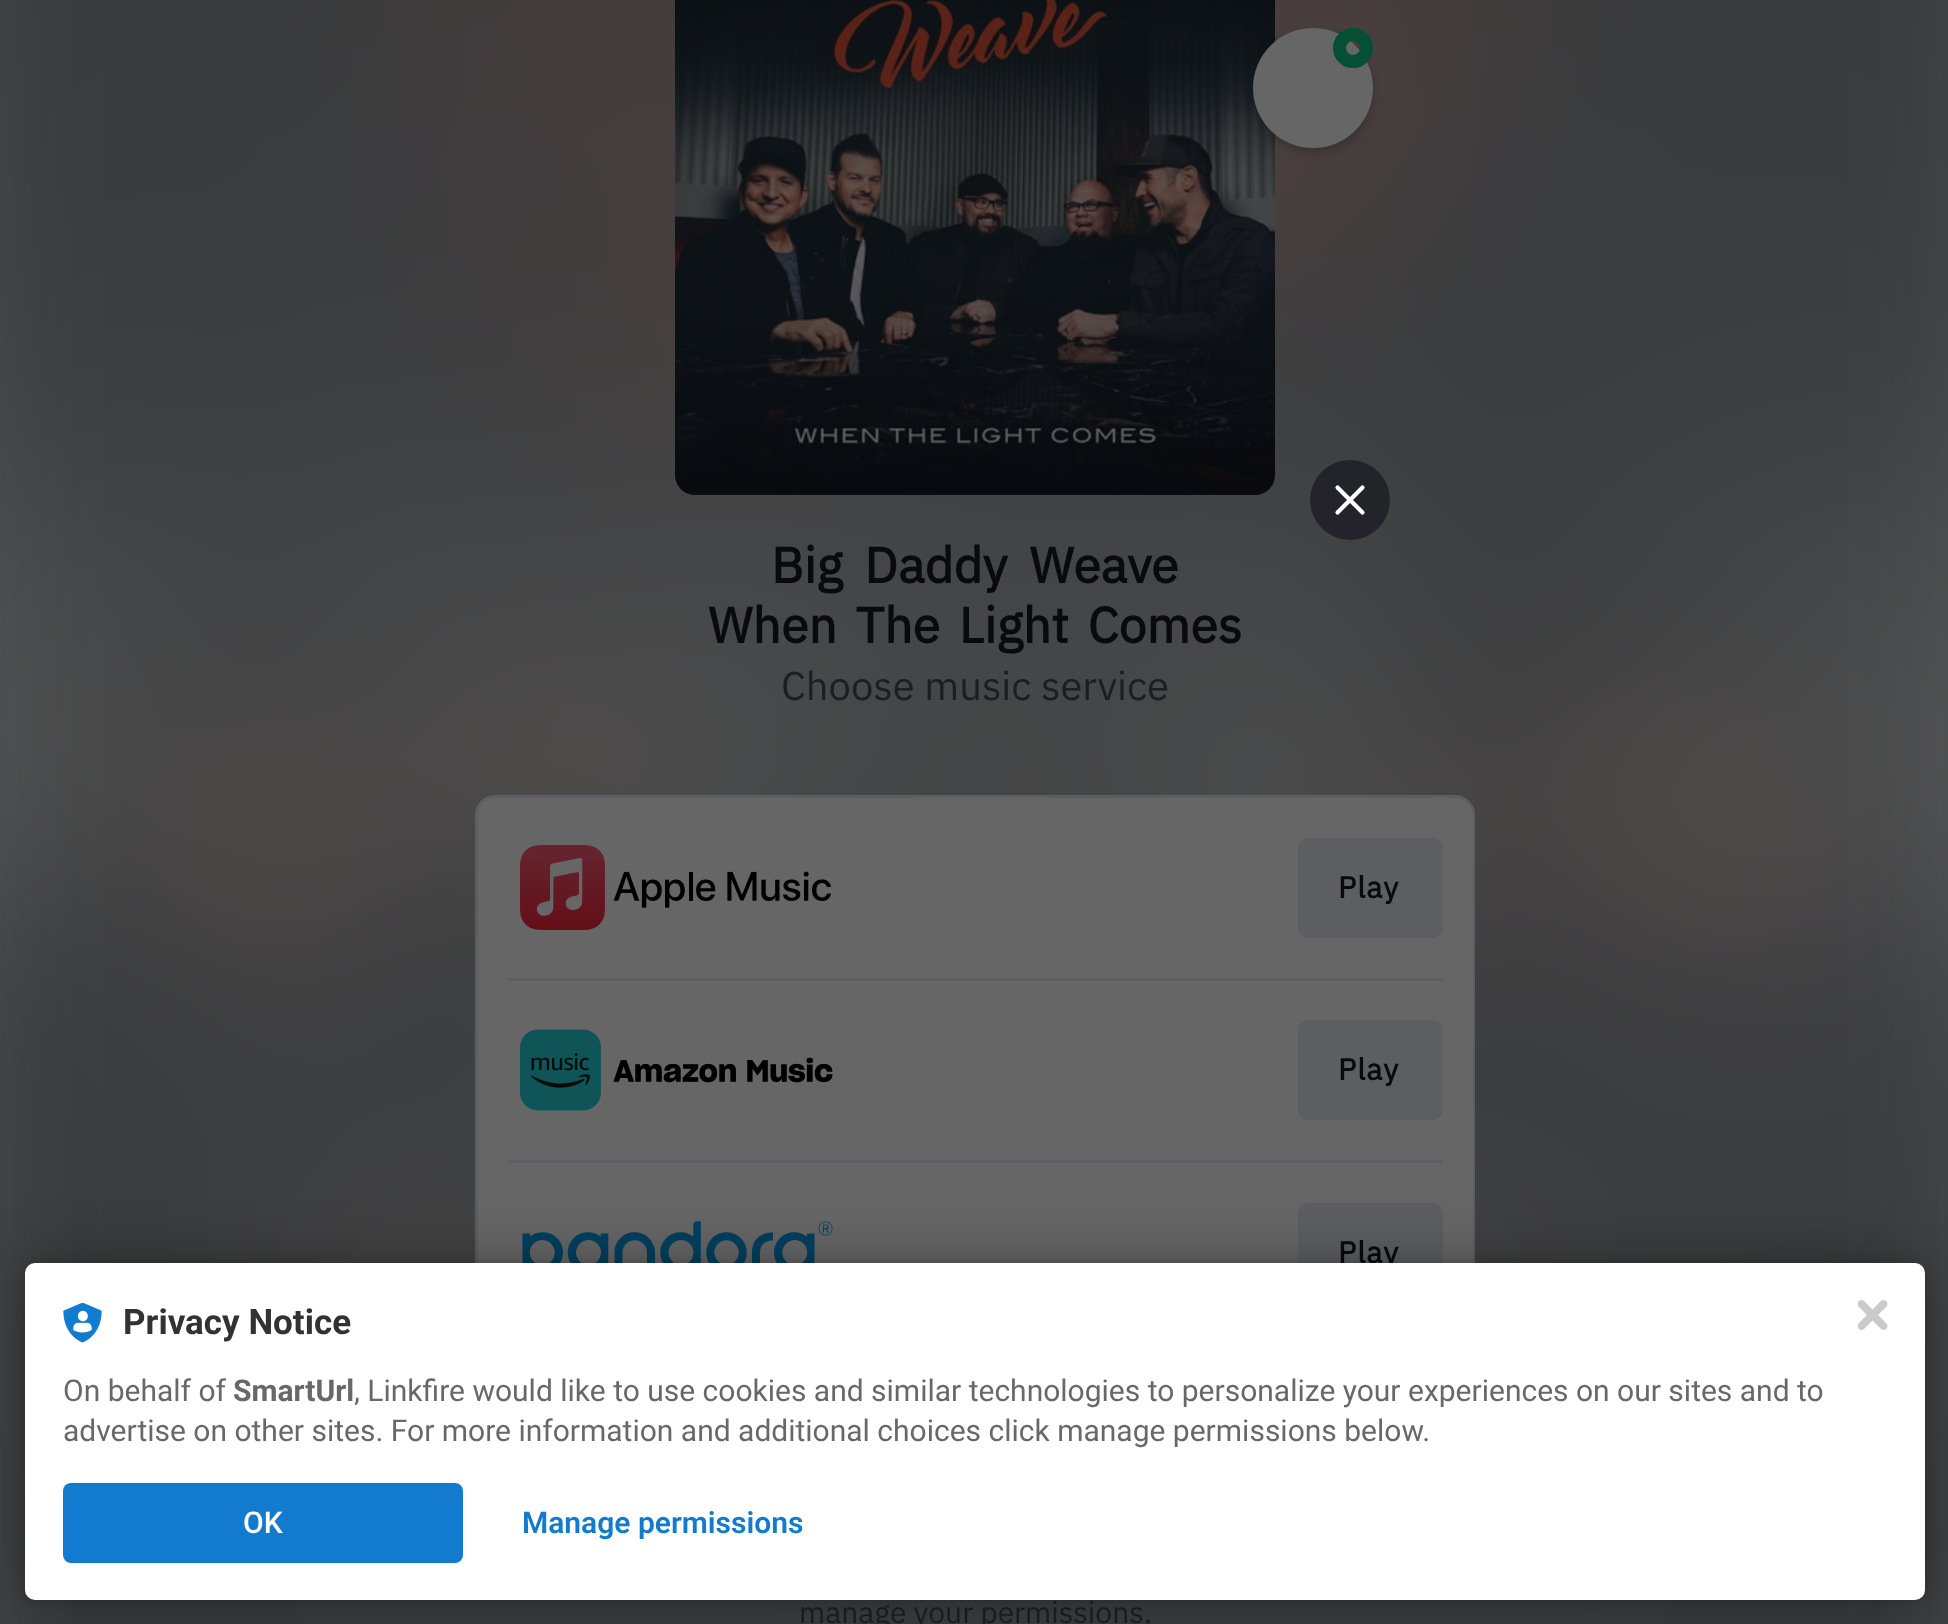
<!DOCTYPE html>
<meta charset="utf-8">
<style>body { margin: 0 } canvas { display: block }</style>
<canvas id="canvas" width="1948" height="1624"></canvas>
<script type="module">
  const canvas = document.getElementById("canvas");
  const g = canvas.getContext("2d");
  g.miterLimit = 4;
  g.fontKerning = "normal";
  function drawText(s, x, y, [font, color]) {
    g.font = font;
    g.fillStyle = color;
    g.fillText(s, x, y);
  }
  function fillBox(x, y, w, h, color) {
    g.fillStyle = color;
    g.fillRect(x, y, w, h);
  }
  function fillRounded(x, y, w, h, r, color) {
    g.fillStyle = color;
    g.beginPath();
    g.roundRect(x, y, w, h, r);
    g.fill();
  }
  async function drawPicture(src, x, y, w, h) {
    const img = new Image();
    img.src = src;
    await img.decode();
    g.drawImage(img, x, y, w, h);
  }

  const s1 = ["bold 50px IBM Plex Sans", "#0A090D"];
  const s2 = ["40px IBM Plex Sans", "#1C1E26"];
  const s3 = ["bold 30px IBM Plex Sans", "#0A090D"];
  const s4 = ["30px IBM Plex Sans", "#1C1E26"];
  const s5 = ["bold 35px Roboto", "#323232"];
  const s6 = ["30px Roboto", "#686868"];
  const s7 = ["bold 30px Roboto", "#686868"];
  const s8 = ["500 30px Roboto", "#FFFFFF"];
  const s9 = ["600 30px Roboto", "#137BCF"];

  fillBox(0, 0, 1948, 1624, "#666666");
  await drawPicture("pic1.png", 0, 0, 1948, 1624);
  await drawPicture("pic2.png", 675, 0, 600, 495);
  g.fillStyle = "rgba(0, 0, 0, 0.2)";
  g.filter = "blur(5px)";
  g.beginPath();
  g.roundRect(1253, 33, 120, 120, 60);
  g.fill();
  g.filter = "none";
  g.fillStyle = "#666666";
  g.beginPath();
  g.arc(1313, 88, 60, 0, Math.PI * 2);
  g.fill();
  g.beginPath();
  g.arc(1353, 48, 13.5, 0, Math.PI * 2);
  g.strokeStyle = "#054F36";
  g.lineWidth = 13;
  g.stroke();
  g.fillStyle = "rgba(24, 23, 33, 0.7)";
  g.beginPath();
  g.arc(1350, 500, 40, 0, Math.PI * 2);
  g.fill();
  g.beginPath();
  g.moveTo(1337.5, 487.5);
  g.lineTo(1362.5, 512.5);
  g.moveTo(1337.5, 512.5);
  g.lineTo(1362.5, 487.5);
  g.strokeStyle = "#FFFFFF";
  g.lineWidth = 4.2;
  g.lineCap = "round";
  g.lineJoin = "round";
  g.stroke();
  g.wordSpacing = "10px";
  drawText("Big Daddy Weave", 771, 583, s1);
  g.wordSpacing = "7px";
  drawText("When The Light Comes", 708, 643, s1);
  g.wordSpacing = "0px";
  drawText("Choose music service", 781, 700, s2);
  g.fillStyle = "#666666";
  g.beginPath();
  g.roundRect(476.5, 796.5, 997, 730, 18.5);
  g.fill();
  g.strokeStyle = "#5C5E61";
  g.lineWidth = 3;
  g.lineJoin = "miter";
  g.stroke();
  fillRounded(478, 798, 995, 727, 18, "#666666");
  await drawPicture("pic3.png", 520, 845, 311, 85);
  fillRounded(1298, 838, 145, 100, 10, "#5C5E61");
  g.letterSpacing = "1px";
  drawText("Play", 1338, 898, s3);
  fillBox(508, 978, 935, 3, "#5C5E61");
  await drawPicture("pic4.png", 520, 1029, 313, 82);
  fillRounded(1298, 1020, 145, 100, 10, "#5C5E61");
  drawText("Play", 1338, 1080, s3);
  fillBox(508, 1160, 935, 3, "#5C5E61");
  await drawPicture("pic5.png", 522, 1221, 311, 42);
  fillRounded(1298, 1203, 145, 100, 10, "#5C5E61");
  drawText("Play", 1338, 1263, s3);
  g.letterSpacing = "0px";
  drawText("manage your permissions.", 799, 1623, s4);
  g.fillStyle = "rgba(0, 0, 0, 0.12)";
  g.filter = "blur(5px)";
  g.beginPath();
  g.roundRect(25, 1263, 1900, 337, 10);
  g.fill();
  g.filter = "none";
  g.fillStyle = "rgba(0, 0, 0, 0.3)";
  g.filter = "blur(30px)";
  g.beginPath();
  g.roundRect(25, 1263, 1900, 337, 10);
  g.fill();
  g.filter = "none";
  fillRounded(25, 1263, 1900, 337, 10, "#FFFFFF");
  await drawPicture("pic6.png", 63, 1303, 39, 40);
  drawText("Privacy Notice", 123, 1334, s5);
  drawText("On behalf of", 63, 1401, s6);
  drawText("SmartUrl", 233, 1401, s7);
  drawText(", Linkfire would like to use cookies and similar technologies to personalize your experiences on our sites and to", 354, 1401, s6);
  drawText("advertise on other sites. For more information and additional choices click manage permissions below.", 63, 1441, s6);
  fillRounded(63, 1483, 400, 80, 8, "#137BCF");
  drawText("OK", 243, 1533, s8);
  drawText("Manage permissions", 522, 1533, s9);
  await drawPicture("pic7.png", 1858, 1300, 30, 30);
</script>
